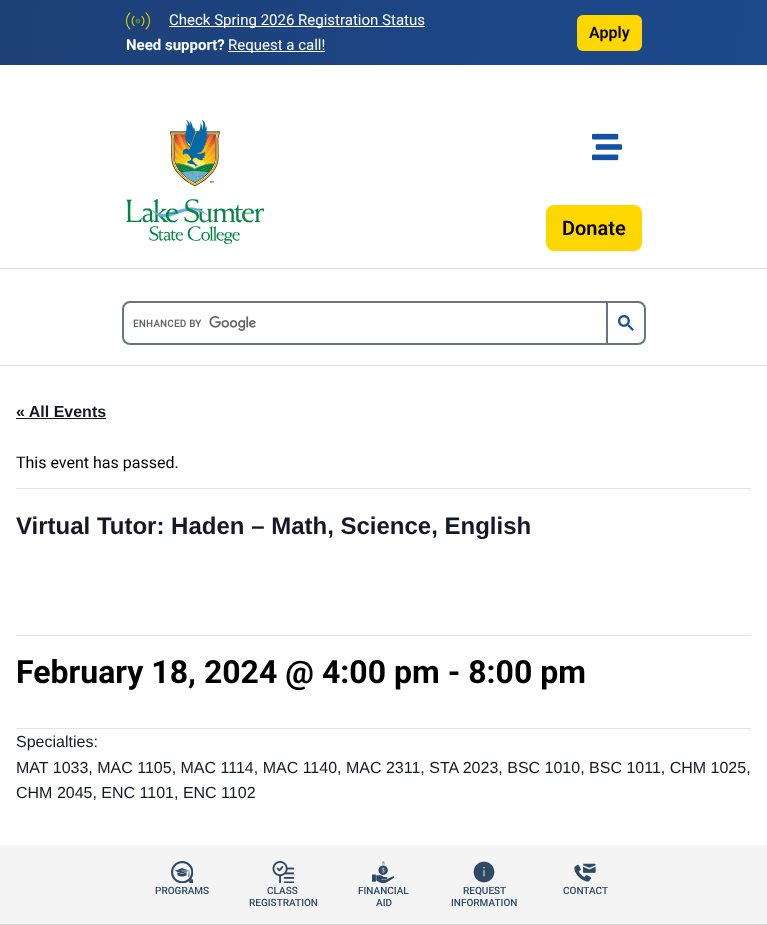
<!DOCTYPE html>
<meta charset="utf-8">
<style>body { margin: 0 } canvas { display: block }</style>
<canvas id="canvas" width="767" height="925"></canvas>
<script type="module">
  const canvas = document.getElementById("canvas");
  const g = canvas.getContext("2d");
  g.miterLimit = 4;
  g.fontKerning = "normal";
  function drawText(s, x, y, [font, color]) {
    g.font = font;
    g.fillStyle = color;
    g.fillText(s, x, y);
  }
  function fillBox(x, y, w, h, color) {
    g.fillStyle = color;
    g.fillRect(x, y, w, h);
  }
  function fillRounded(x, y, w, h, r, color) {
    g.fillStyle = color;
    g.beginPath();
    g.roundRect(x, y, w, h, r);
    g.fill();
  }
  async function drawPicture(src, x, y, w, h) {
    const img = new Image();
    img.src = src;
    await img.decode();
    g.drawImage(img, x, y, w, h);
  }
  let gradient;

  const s1 = ["15px Roboto", "#FFFFFF"];
  const s2 = ["bold 15px Roboto", "#FFFFFF"];
  const s3 = ["600 16px Roboto", "#000000"];
  const s4 = ["600 20px Roboto", "#000000"];
  const s5 = ["500 10px Roboto", "#2E4966"];
  const s6 = ["bold 16px Liberation Sans", "#141827"];
  const s7 = ["16px Roboto", "#000000"];
  const s8 = ["bold 24px Liberation Sans", "#141827"];
  const s9 = ["bold 32px Roboto", "#000000"];
  const s10 = ["16px Liberation Sans", "#141827"];

  fillBox(0, 0, 767, 925, "#FFFFFF");
  fillBox(0, 365, 767, 1, "#DEE2E6");
  gradient = g.createLinearGradient(2.9, -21, 764, 86);
  gradient.addColorStop(0.03, "#1D4078");
  gradient.addColorStop(0.99, "#1C4A8D");
  g.fillStyle = gradient;
  g.fillRect(0, 0, 767, 65);
  await drawPicture("pic1.png", 126, 12, 24, 18);
  fillBox(169, 26, 256, 1, "#FFFFFF");
  drawText("Check Spring 2026 Registration Status", 169, 25, s1);
  drawText("Need support?", 126, 50, s2);
  fillBox(228, 51, 97, 1, "#FFFFFF");
  drawText("Request a call!", 228, 50, s1);
  fillRounded(577, 15, 65, 36, 6, "#FFD700");
  drawText("Apply", 589, 38, s3);
  fillBox(0, 268, 767, 1, "#D7D7D7");
  await drawPicture("pic2.png", 126, 120, 138, 124);
  await drawPicture("pic3.png", 592, 133, 30, 28);
  fillRounded(546, 205, 96, 46, 8, "#FFD700");
  drawText("Donate", 562, 235, s4);
  g.beginPath();
  g.roundRect(123, 302, 484, 42, [7, 0, 0, 7]);
  g.strokeStyle = "#6B7280";
  g.lineWidth = 2;
  g.stroke();
  await drawPicture("pic4.png", 133, 316, 123, 15);
  g.beginPath();
  g.roundRect(607, 302, 38, 42, [0, 7, 7, 0]);
  g.stroke();
  await drawPicture("pic5.png", 618, 315, 16, 16);
  fillBox(0, 845, 767, 79, "#F4F4F4");
  fillBox(0, 924, 767, 1, "#DCDCDC");
  await drawPicture("pic6.png", 171, 861, 22, 22);
  drawText("PROGRAMS", 155, 894, s5);
  await drawPicture("pic7.png", 272, 861, 22, 22);
  drawText("CLASS", 267, 894, s5);
  drawText("REGISTRATION", 249, 906, s5);
  await drawPicture("pic8.png", 372, 861, 22, 22);
  drawText("FINANCIAL", 358, 894, s5);
  drawText("AID", 376, 906, s5);
  await drawPicture("pic9.png", 473, 861, 22, 22);
  drawText("REQUEST", 463, 894, s5);
  drawText("INFORMATION", 451, 906, s5);
  await drawPicture("pic10.png", 574, 863, 22, 19);
  drawText("CONTACT", 563, 894, s5);
  drawText("« All Events", 16, 417, s6);
  fillBox(16, 418, 90, 1, "#141827");
  fillBox(16, 488, 735, 1, "#E4E4E4");
  drawText("This event has passed.", 16, 468, s7);
  drawText("Virtual Tutor: Haden – Math, Science, English", 16, 534, s8);
  fillBox(16, 635, 735, 1, "#E4E4E4");
  drawText("February 18, 2024 @ 4:00 pm - 8:00 pm", 16, 683, s9);
  fillBox(16, 728, 735, 1, "#E4E4E4");
  drawText("Specialties:", 16, 747, s10);
  drawText("MAT 1033, MAC 1105, MAC 1114, MAC 1140, MAC 2311, STA 2023, BSC 1010, BSC 1011, CHM 1025,", 16, 773, s10);
  drawText("CHM 2045, ENC 1101, ENC 1102", 16, 798, s10);
</script>
